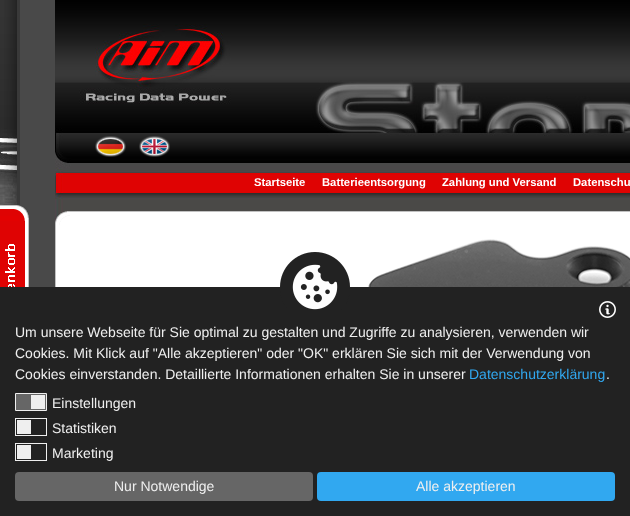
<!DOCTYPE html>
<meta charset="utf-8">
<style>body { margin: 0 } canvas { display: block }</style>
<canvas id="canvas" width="630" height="516"></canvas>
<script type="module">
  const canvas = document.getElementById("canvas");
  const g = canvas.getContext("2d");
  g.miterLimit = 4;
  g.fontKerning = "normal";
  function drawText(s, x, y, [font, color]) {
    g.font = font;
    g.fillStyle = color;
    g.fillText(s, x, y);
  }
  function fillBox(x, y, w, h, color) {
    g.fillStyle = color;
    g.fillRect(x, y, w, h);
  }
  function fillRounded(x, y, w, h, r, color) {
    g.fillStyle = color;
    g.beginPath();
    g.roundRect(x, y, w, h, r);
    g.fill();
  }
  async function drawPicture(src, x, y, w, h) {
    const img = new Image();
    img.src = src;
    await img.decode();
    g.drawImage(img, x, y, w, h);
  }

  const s1 = ["bold 11.25px Liberation Sans", "#FFFFFF"];
  const s2 = ["14px Liberation Sans", "#EFEFEF"];
  const s3 = ["14px Liberation Sans", "#31A8F0"];

  fillBox(0, 0, 630, 516, "#FFFFFF");
  await drawPicture("pic1.png", 0, 0, 17, 205);
  await drawPicture("pic2.png", 4, 0, 16, 206);
  fillBox(20, 0, 35, 287, "#494949");
  await drawPicture("pic3.png", 55, 0, 575, 223);
  await drawPicture("pic4.png", 95, 136, 31, 21);
  await drawPicture("pic5.png", 139, 136, 31, 21);
  drawText("Startseite", 254, 186, s1);
  drawText("Batterieentsorgung", 322, 186, s1);
  drawText("Zahlung und Versand", 442, 186, s1);
  drawText("Datenschu", 573, 186, s1);
  await drawPicture("pic6.png", 55, 211, 575, 76);
  await drawPicture("pic7.png", 0, 205, 29, 82);
  fillBox(0, 287, 630, 229, "#222222");
  await drawPicture("pic8.png", 280, 252, 70, 58);
  await drawPicture("pic9.png", 599, 301, 17, 17);
  drawText("Um unsere Webseite für Sie optimal zu gestalten und Zugriffe zu analysieren, verwenden wir", 15, 337, s2);
  drawText("Cookies. Mit Klick auf \"Alle akzeptieren\" oder \"OK\" erklären Sie sich mit der Verwendung von", 15, 358, s2);
  drawText("Cookies einverstanden. Detaillierte Informationen erhalten Sie in unserer", 15, 379, s2);
  drawText("Datenschutzerklärung", 469, 379, s3);
  drawText(".", 606, 379, s2);
  g.fillStyle = "#666666";
  g.beginPath();
  g.rect(15.5, 393.5, 31, 17);
  g.fill();
  g.strokeStyle = "#EFEFEF";
  g.stroke();
  fillBox(31, 395, 14, 14, "#EFEFEF");
  drawText("Einstellungen", 52, 408, s2);
  g.strokeRect(15.5, 418.5, 31, 17);
  fillBox(17, 420, 14, 14, "#EFEFEF");
  drawText("Statistiken", 52, 433, s2);
  g.strokeRect(15.5, 443.5, 31, 17);
  fillBox(17, 445, 14, 14, "#EFEFEF");
  drawText("Marketing", 52, 458, s2);
  fillRounded(15, 472, 298, 29, 4, "#666666");
  drawText("Nur Notwendige", 114, 491, s2);
  fillRounded(317, 472, 298, 29, 4, "#31A8F0");
  drawText("Alle akzeptieren", 416, 491, s2);
</script>
